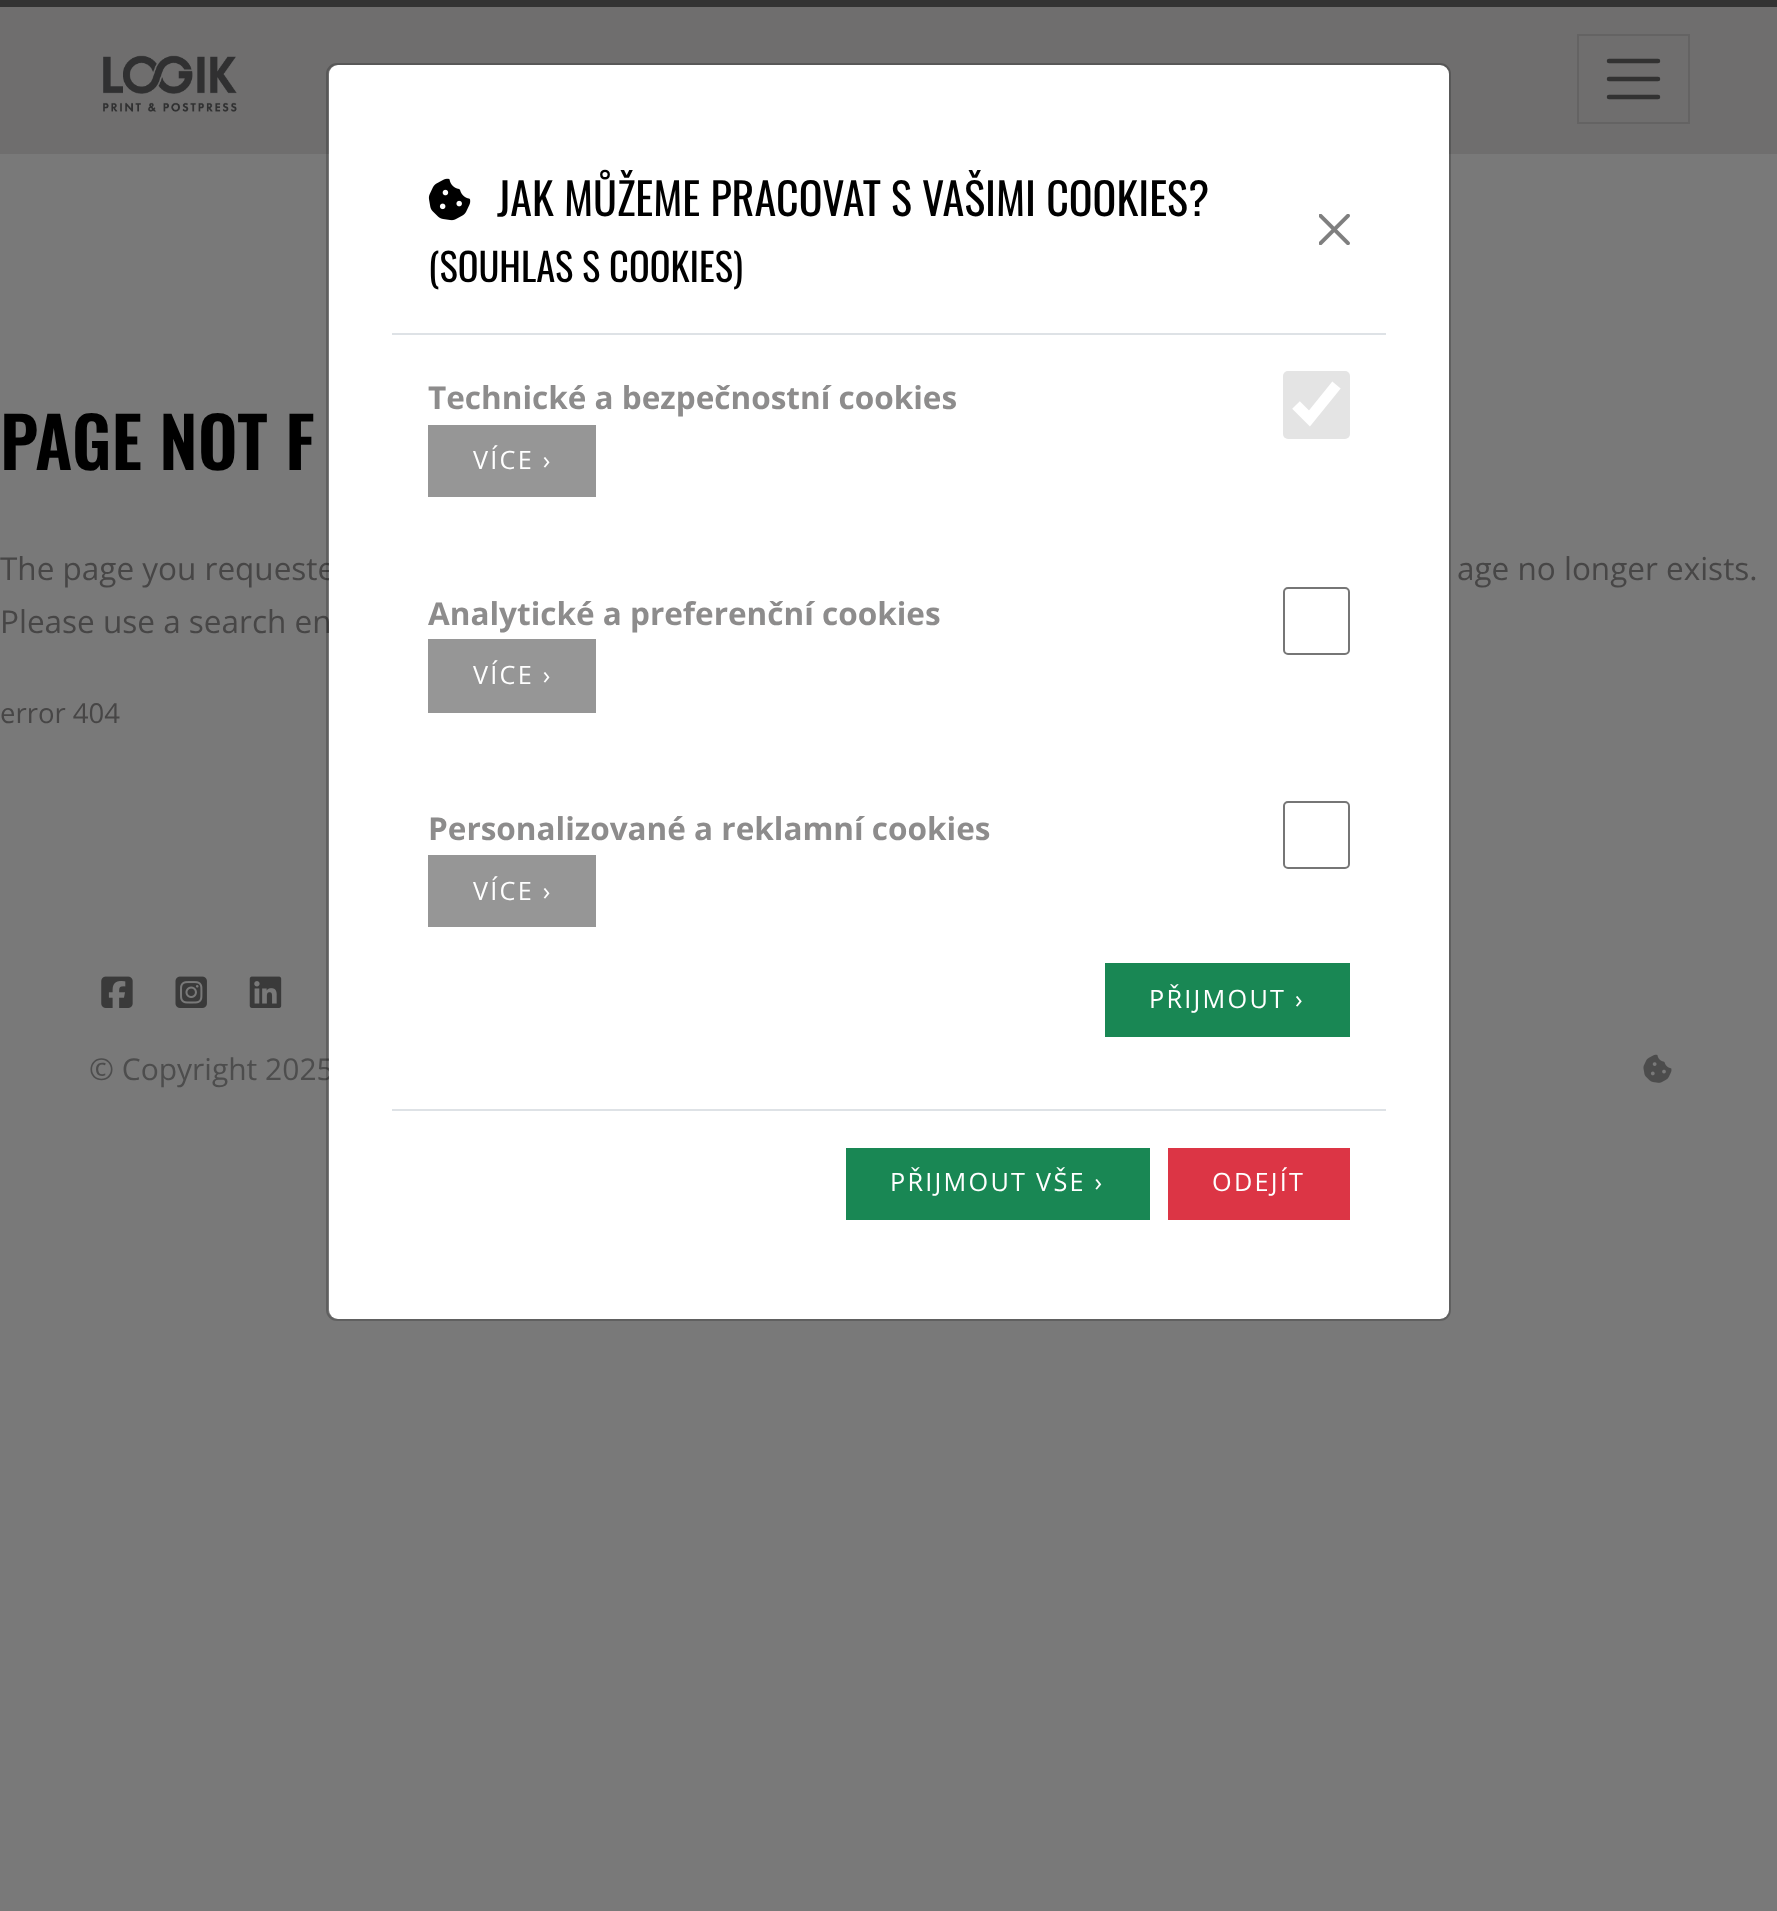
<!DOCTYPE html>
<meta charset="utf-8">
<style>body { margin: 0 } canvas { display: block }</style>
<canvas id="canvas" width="1777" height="1911"></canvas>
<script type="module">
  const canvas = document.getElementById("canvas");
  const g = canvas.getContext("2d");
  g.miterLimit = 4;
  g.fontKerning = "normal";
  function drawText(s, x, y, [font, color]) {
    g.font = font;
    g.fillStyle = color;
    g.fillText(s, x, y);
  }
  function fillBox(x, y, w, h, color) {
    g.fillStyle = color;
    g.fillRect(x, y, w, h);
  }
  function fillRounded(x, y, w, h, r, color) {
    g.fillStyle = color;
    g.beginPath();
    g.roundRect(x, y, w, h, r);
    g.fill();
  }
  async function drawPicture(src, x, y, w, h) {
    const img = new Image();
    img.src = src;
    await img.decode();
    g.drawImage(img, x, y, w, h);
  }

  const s1 = ["31.5px Open Sans", "#474646"];
  const s2 = ["30px Open Sans", "#4D4D4D"];
  const s3 = ["44.1px Oswald", "#000000"];
  const s4 = ["38.5px Oswald", "#000000"];
  const s5 = ["bold 31.5px Open Sans", "#8D8C8C"];
  const s6 = ["25.25px Open Sans", "#FFFFFF"];
  const s7 = ["600 69.5px Oswald", "#000000"];
  const s8 = ["27.5px Open Sans", "#474646"];

  fillBox(0, 0, 1777, 1911, "#797979");
  fillBox(0, 7, 1777, 147, "#6F6E6E");
  fillBox(0, 0, 1777, 7, "#333333");
  await drawPicture("pic1.png", 103, 55, 134, 57);
  g.strokeStyle = "#646363";
  g.lineWidth = 2;
  g.strokeRect(1578, 35, 111, 88);
  g.beginPath();
  g.moveTo(1609, 61);
  g.lineTo(1658, 61);
  g.moveTo(1609, 79);
  g.lineTo(1658, 79);
  g.moveTo(1609, 97);
  g.lineTo(1658, 97);
  g.strokeStyle = "#323232";
  g.lineWidth = 4.5;
  g.lineCap = "round";
  g.stroke();
  drawText("The page you requeste", 0, 580, s1);
  drawText("© Copyright 2025", 89, 1080, s2);
  fillRounded(329, 65, 1120, 1254, 9, "#FFFFFF");
  drawText("Please use a search en", 0, 633, s1);
  g.beginPath();
  g.roundRect(327, 64, 1123, 1256, 10);
  g.strokeStyle = "rgba(0, 0, 0, 0.2)";
  g.lineWidth = 2;
  g.stroke();
  fillBox(392, 333, 994, 2, "#DEE2E6");
  await drawPicture("pic2.png", 428, 178, 43, 43);
  drawText("JAK MŮŽEME PRACOVAT S VAŠIMI COOKIES?", 497, 216, s3);
  drawText("(SOUHLAS S COOKIES)", 428, 282, s4);
  await drawPicture("pic3.png", 1319, 214, 31, 31);
  drawText("Technické a bezpečnostní cookies", 428, 409, s5);
  fillBox(428, 425, 168, 72, "#969696");
  g.letterSpacing = "2.25px";
  drawText("VÍCE ›", 473, 469, s6);
  fillRounded(1283, 371, 67, 68, 5, "#E4E4E4");
  g.beginPath();
  g.moveTo(1296, 405);
  g.lineTo(1309.5, 418.5);
  g.lineTo(1336.5, 385);
  g.strokeStyle = "#FFFFFF";
  g.lineWidth = 10.8;
  g.lineCap = "butt";
  g.stroke();
  g.letterSpacing = "0px";
  drawText("Analytické a preferenční cookies", 428, 625, s5);
  fillBox(428, 639, 168, 74, "#969696");
  g.letterSpacing = "2.25px";
  drawText("VÍCE ›", 473, 684, s6);
  g.beginPath();
  g.roundRect(1284, 588, 65, 66, 4);
  g.strokeStyle = "#767676";
  g.lineWidth = 2;
  g.stroke();
  g.letterSpacing = "0px";
  drawText("Personalizované a reklamní cookies", 428, 840, s5);
  fillBox(428, 855, 168, 72, "#969696");
  g.letterSpacing = "2.25px";
  drawText("VÍCE ›", 473, 900, s6);
  g.beginPath();
  g.roundRect(1284, 802, 65, 66, 4);
  g.stroke();
  fillBox(1105, 963, 245, 74, "#198754");
  drawText("PŘIJMOUT ›", 1149, 1008, s6);
  fillBox(392, 1109, 994, 2, "#DEE2E6");
  fillBox(846, 1148, 304, 72, "#198754");
  drawText("PŘIJMOUT VŠE ›", 890, 1191, s6);
  fillBox(1168, 1148, 182, 72, "#DC3545");
  drawText("ODEJÍT", 1212, 1191, s6);
  g.letterSpacing = "0px";
  drawText("PAGE NOT F", 0, 470, s7);
  drawText("age no longer exists.", 1457, 580, s1);
  drawText("error 404", 0, 723, s8);
  await drawPicture("pic4.png", 101, 976, 32, 32);
  await drawPicture("pic5.png", 175, 976, 32, 32);
  await drawPicture("pic6.png", 249, 976, 33, 32);
  await drawPicture("pic7.png", 1643, 1054, 29, 29);
</script>
